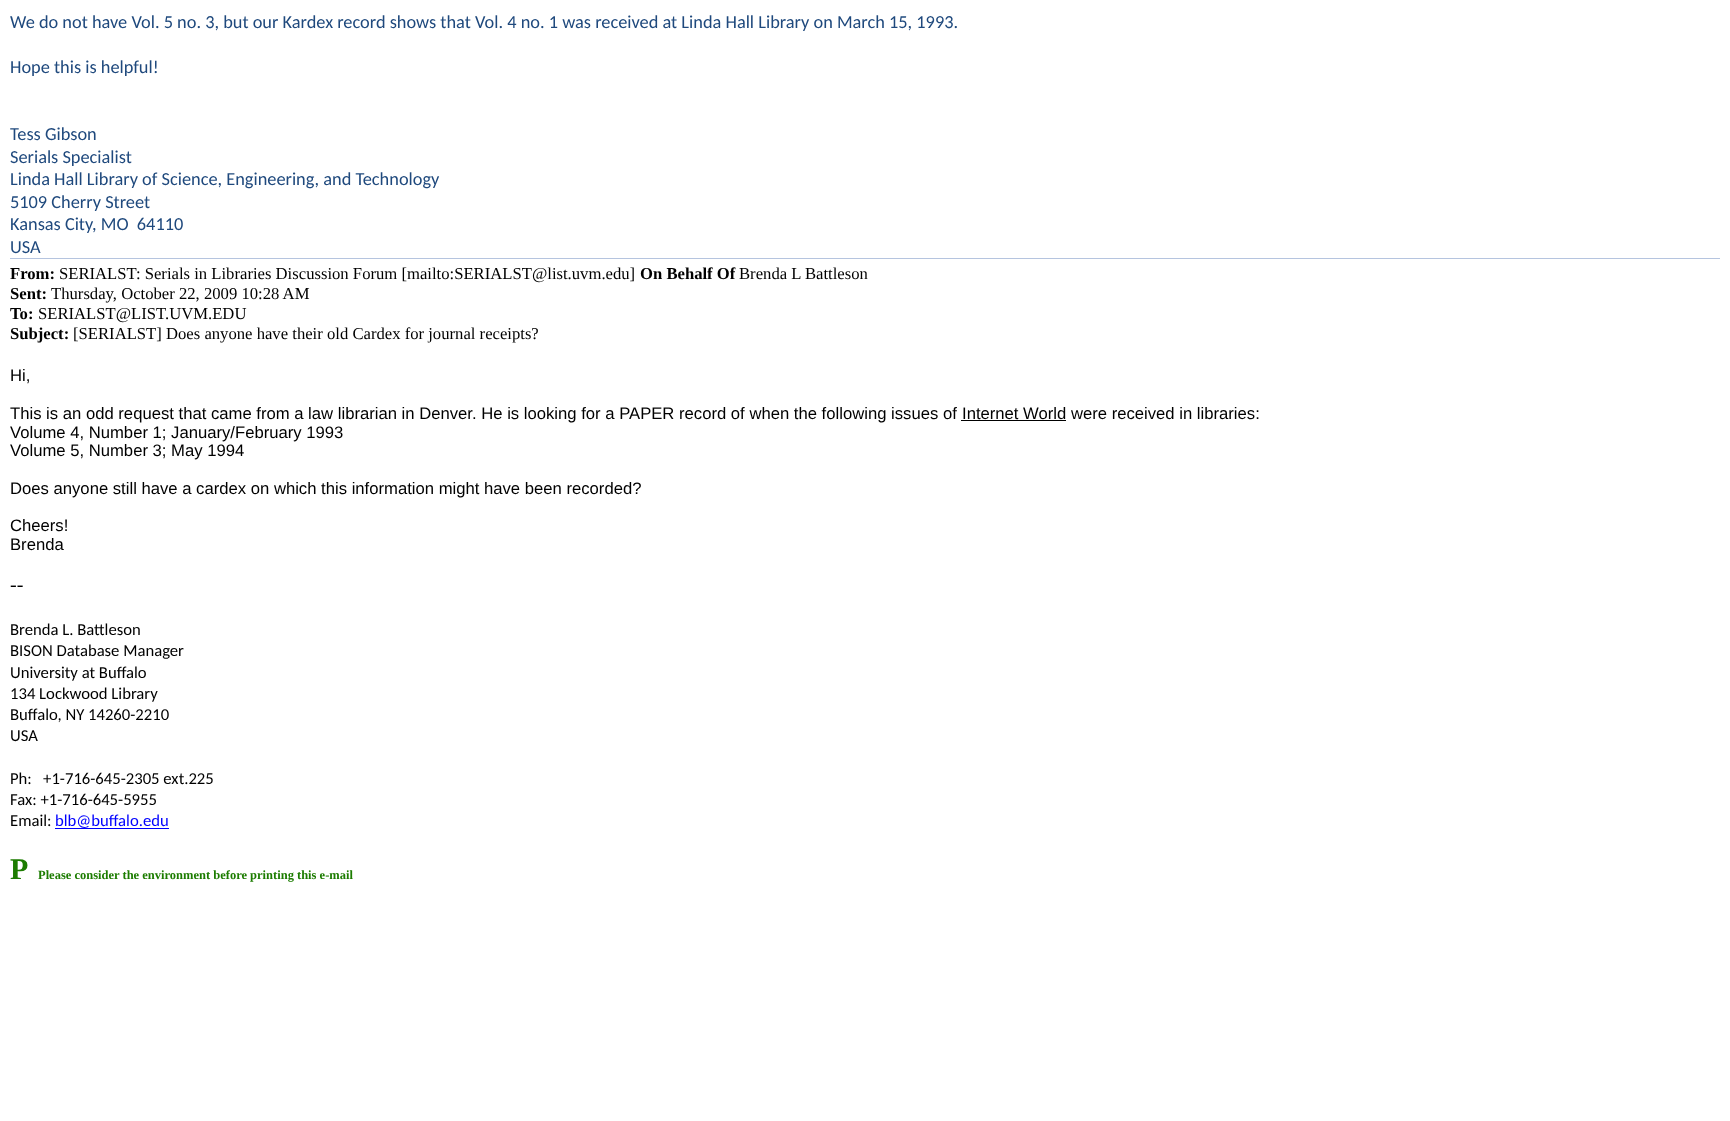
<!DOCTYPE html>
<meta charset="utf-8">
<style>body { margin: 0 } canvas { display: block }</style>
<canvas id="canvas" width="1730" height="1121"></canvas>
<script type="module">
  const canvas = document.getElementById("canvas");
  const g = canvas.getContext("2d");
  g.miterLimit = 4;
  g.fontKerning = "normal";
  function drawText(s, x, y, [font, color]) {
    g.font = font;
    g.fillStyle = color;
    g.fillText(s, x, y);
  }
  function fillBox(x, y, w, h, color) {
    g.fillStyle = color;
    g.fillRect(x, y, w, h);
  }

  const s1 = ["18.33px Carlito", "#1F497D"];
  const s2 = ["bold 16.67px Liberation Serif", "#000000"];
  const s3 = ["16.67px Liberation Serif", "#000000"];
  const s4 = ["16.67px Liberation Sans", "#000000"];
  const s5 = ["20px Liberation Serif", "#000000"];
  const s6 = ["16.67px Carlito", "#000000"];
  const s7 = ["16.67px Carlito", "#0000FF"];
  const s8 = ["bold 30px Liberation Serif", "#1C7C00"];
  const s9 = ["bold 12.5px Liberation Serif", "#1C7C00"];

  fillBox(0, 0, 1730, 1121, "#FFFFFF");
  drawText("We do not have Vol. 5 no. 3, but our Kardex record shows that Vol. 4 no. 1 was received at Linda Hall Library on March 15, 1993.", 10, 28, s1);
  drawText("Hope this is helpful!", 10, 73, s1);
  drawText("Tess Gibson", 10, 140, s1);
  drawText("Serials Specialist", 10, 163, s1);
  drawText("Linda Hall Library of Science, Engineering, and Technology", 10, 185, s1);
  drawText("5109 Cherry Street", 10, 208, s1);
  drawText("Kansas City, MO  64110", 10, 230, s1);
  drawText("USA", 10, 253, s1);
  fillBox(10, 258, 1710, 1, "#B5C4DF");
  drawText("From:", 10, 279, s2);
  drawText("SERIALST: Serials in Libraries Discussion Forum [mailto:SERIALST@list.uvm.edu]", 59, 279, s3);
  drawText("On Behalf Of", 640, 279, s2);
  drawText("Brenda L Battleson", 739, 279, s3);
  drawText("Sent:", 10, 299, s2);
  drawText("Thursday, October 22, 2009 10:28 AM", 51, 299, s3);
  drawText("To:", 10, 319, s2);
  drawText("SERIALST@LIST.UVM.EDU", 38, 319, s3);
  drawText("Subject:", 10, 339, s2);
  drawText("[SERIALST] Does anyone have their old Cardex for journal receipts?", 73, 339, s3);
  drawText("Hi,", 10, 381, s4);
  drawText("This is an odd request that came from a law librarian in Denver. He is looking for a PAPER record of when the following issues of", 10, 419, s4);
  fillBox(961, 420, 105, 1, "#000000");
  drawText("Internet World were received in libraries:", 962, 419, s4);
  drawText("Volume 4, Number 1; January/February 1993", 10, 438, s4);
  drawText("Volume 5, Number 3; May 1994", 10, 456, s4);
  drawText("Does anyone still have a cardex on which this information might have been recorded?", 10, 494, s4);
  drawText("Cheers!", 10, 531, s4);
  drawText("Brenda", 10, 550, s4);
  drawText("--", 10, 591, s5);
  drawText("Brenda L. Battleson", 10, 635, s6);
  drawText("BISON Database Manager", 10, 656, s6);
  drawText("University at Buffalo", 10, 678, s6);
  drawText("134 Lockwood Library", 10, 699, s6);
  drawText("Buffalo, NY 14260-2210", 10, 720, s6);
  drawText("USA", 10, 741, s6);
  drawText("Ph:   +1-716-645-2305 ext.225", 10, 784, s6);
  drawText("Fax: +1-716-645-5955", 10, 805, s6);
  drawText("Email:", 10, 826, s6);
  drawText("blb@buffalo.edu", 55, 826, s7);
  fillBox(55, 828, 114, 1, "#0000FF");
  drawText("P", 10, 879, s8);
  drawText("Please consider the environment before printing this e-mail", 38, 879, s9);
</script>
